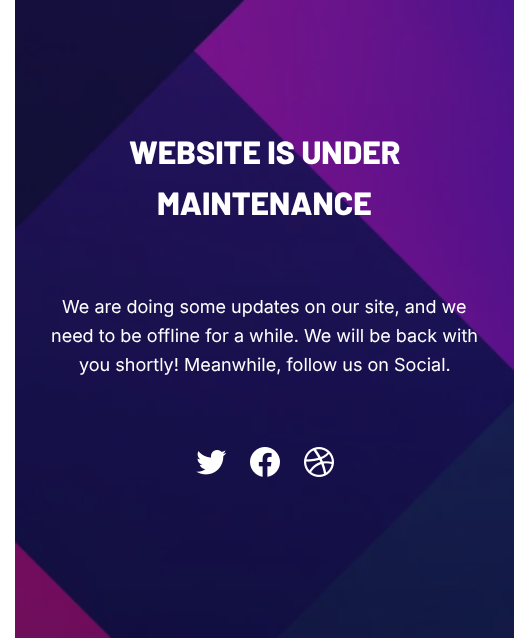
<!DOCTYPE html>
<meta charset="utf-8">
<style>body { margin: 0 } canvas { display: block }</style>
<canvas id="canvas" width="529" height="638"></canvas>
<script type="module">
  const canvas = document.getElementById("canvas");
  const g = canvas.getContext("2d");
  g.miterLimit = 4;
  g.fontKerning = "normal";
  function drawText(s, x, y, [font, color]) {
    g.font = font;
    g.fillStyle = color;
    g.fillText(s, x, y);
  }
  function fillBox(x, y, w, h, color) {
    g.fillStyle = color;
    g.fillRect(x, y, w, h);
  }
  async function drawPicture(src, x, y, w, h) {
    const img = new Image();
    img.src = src;
    await img.decode();
    g.drawImage(img, x, y, w, h);
  }

  const s1 = ["800 32px Barlow", "#FFFFFF"];
  const s2 = ["18px Inter", "#FFFFFF"];

  fillBox(0, 0, 529, 638, "#FFFFFF");
  fillBox(15, 0, 499, 638, "#191717");
  await drawPicture("pic1.png", 15, 0, 499, 638);
  drawText("WEBSITE IS UNDER", 129, 164, s1);
  drawText("MAINTENANCE", 157, 215, s1);
  drawText("We are doing some updates on our site, and we", 62, 313, s2);
  drawText("need to be offline for a while. We will be back with", 51, 342, s2);
  drawText("you shortly! Meanwhile, follow us on Social.", 79, 371, s2);
  await drawPicture("pic2.png", 196, 450, 31, 25);
  await drawPicture("pic3.png", 250, 447, 30, 30);
  await drawPicture("pic4.png", 304, 447, 30, 30);
</script>
